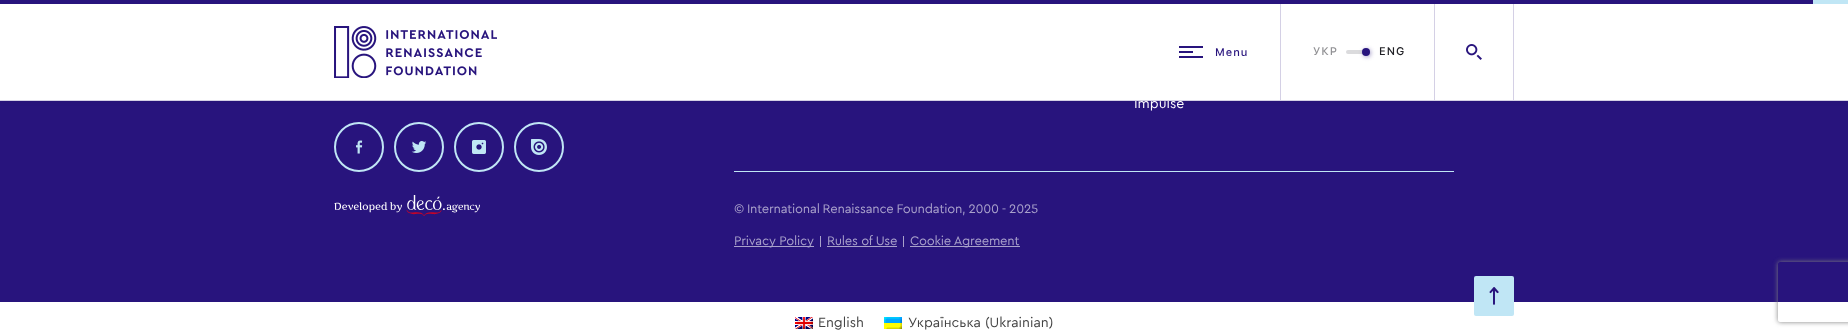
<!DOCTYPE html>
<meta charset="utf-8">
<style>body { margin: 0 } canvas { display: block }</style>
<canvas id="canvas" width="1848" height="336"></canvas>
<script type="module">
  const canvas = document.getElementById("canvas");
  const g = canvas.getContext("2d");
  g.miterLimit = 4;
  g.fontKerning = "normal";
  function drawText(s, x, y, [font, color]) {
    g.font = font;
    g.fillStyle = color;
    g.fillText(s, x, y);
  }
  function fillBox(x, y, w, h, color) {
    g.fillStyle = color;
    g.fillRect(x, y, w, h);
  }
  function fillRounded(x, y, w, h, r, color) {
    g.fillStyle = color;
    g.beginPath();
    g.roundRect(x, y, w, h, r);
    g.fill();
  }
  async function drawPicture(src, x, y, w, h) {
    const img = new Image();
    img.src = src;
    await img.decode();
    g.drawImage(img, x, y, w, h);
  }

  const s1 = ["14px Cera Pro", "#FFFFFF"];
  const s2 = ["500 11px SF Pro Text", "#28147D"];
  const s3 = ["500 11px SF Pro Text", "#929295"];
  const s4 = ["500 11px SF Pro Text", "#212126"];
  const s5 = ["13px Cera Pro", "#A9A1CB"];
  const s6 = ["14px Cera Pro", "#444444"];

  fillBox(0, 0, 1848, 336, "#FFFFFF");
  fillBox(0, 101, 1848, 201, "#28147D");
  g.fillStyle = "rgba(0, 0, 0, 0.05)";
  g.filter = "blur(2px)";
  g.beginPath();
  g.rect(-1, -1, 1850, 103);
  g.fill();
  g.filter = "none";
  fillBox(0, 4, 1848, 96, "#FFFFFF");
  fillBox(1513, 0, 1, 100, "#D4D0E5");
  drawText("Impulse", 1134, 108, s1);
  fillBox(0, 100, 1848, 1, "#D4D0E5");
  fillBox(1813, 0, 35, 4, "#C0E6F5");
  fillBox(0, 0, 1813, 4, "#28147D");
  await drawPicture("pic1.png", 334, 26, 163, 52);
  fillBox(1179, 51, 14, 2, "#28147D");
  fillBox(1179, 46, 24, 2, "#28147D");
  fillBox(1179, 56, 24, 2, "#28147D");
  g.letterSpacing = "1px";
  drawText("Menu", 1215, 56, s2);
  fillBox(1280, 4, 1, 96, "#D4D0E5");
  fillRounded(1346, 50, 24, 4, 2, "#DBDBDD");
  drawText("УКР", 1313, 55, s3);
  g.fillStyle = "rgba(40, 20, 125, 0.4)";
  g.filter = "blur(2px)";
  g.beginPath();
  g.roundRect(1363, 49, 8, 8, 4);
  g.fill();
  g.filter = "none";
  g.fillStyle = "#28147D";
  g.beginPath();
  g.arc(1366, 52, 4, 0, Math.PI * 2);
  g.fill();
  drawText("ENG", 1379, 55, s4);
  fillBox(1434, 4, 1, 96, "#D4D0E5");
  await drawPicture("pic2.png", 1466, 44, 16, 16);
  fillBox(734, 171, 720, 1, "#C0E6F5");
  g.beginPath();
  g.arc(359, 147, 24, 0, Math.PI * 2);
  g.strokeStyle = "#C0E6F5";
  g.lineWidth = 2;
  g.stroke();
  await drawPicture("pic3.png", 356, 140, 7, 14);
  g.beginPath();
  g.arc(419, 147, 24, 0, Math.PI * 2);
  g.stroke();
  await drawPicture("pic4.png", 411, 141, 16, 12);
  g.beginPath();
  g.arc(479, 147, 24, 0, Math.PI * 2);
  g.stroke();
  await drawPicture("pic5.png", 472, 140, 14, 14);
  g.beginPath();
  g.arc(539, 147, 24, 0, Math.PI * 2);
  g.stroke();
  await drawPicture("pic6.png", 531, 139, 16, 16);
  await drawPicture("pic7.png", 334, 195, 146, 21);
  g.letterSpacing = "-0.2px";
  g.wordSpacing = "-0.5px";
  drawText("© International Renaissance Foundation, 2000 - 2025", 734, 213, s5);
  fillBox(734, 246, 80, 1, "#A9A1CB");
  g.wordSpacing = "0px";
  drawText("Privacy Policy", 734, 245, s5);
  fillBox(820, 236, 1, 11, "#A9A1CB");
  drawText("Rules of Use", 827, 245, s5);
  fillBox(827, 246, 70, 1, "#A9A1CB");
  fillBox(903, 236, 1, 11, "#A9A1CB");
  fillBox(910, 246, 110, 1, "#A9A1CB");
  drawText("Cookie Agreement", 910, 245, s5);
  fillRounded(1474, 276, 40, 40, 2, "#C0E6F5");
  await drawPicture("pic8.png", 1489, 287, 10, 18);
  g.save();
  g.beginPath();
  g.moveTo(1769, 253);
  g.lineTo(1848, 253);
  g.lineTo(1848, 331);
  g.lineTo(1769, 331);
  g.closePath();
  g.moveTo(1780, 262);
  g.lineTo(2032, 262);
  g.bezierCurveTo(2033, 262, 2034, 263, 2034, 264);
  g.lineTo(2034, 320);
  g.bezierCurveTo(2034, 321, 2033, 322, 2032, 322);
  g.lineTo(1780, 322);
  g.bezierCurveTo(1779, 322, 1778, 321, 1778, 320);
  g.lineTo(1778, 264);
  g.bezierCurveTo(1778, 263, 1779, 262, 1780, 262);
  g.closePath();
  g.clip("evenodd");
  g.fillStyle = "#808080";
  g.filter = "blur(2.5px)";
  g.beginPath();
  g.roundRect(1778, 262, 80, 60, 2);
  g.fill();
  g.filter = "none";
  g.restore();
  await drawPicture("pic9.png", 795, 317, 18, 12);
  g.letterSpacing = "0px";
  drawText("English", 818, 327, s6);
  await drawPicture("pic10.png", 884, 317, 18, 12);
  drawText("Українська (Ukrainian)", 908, 327, s6);
</script>
